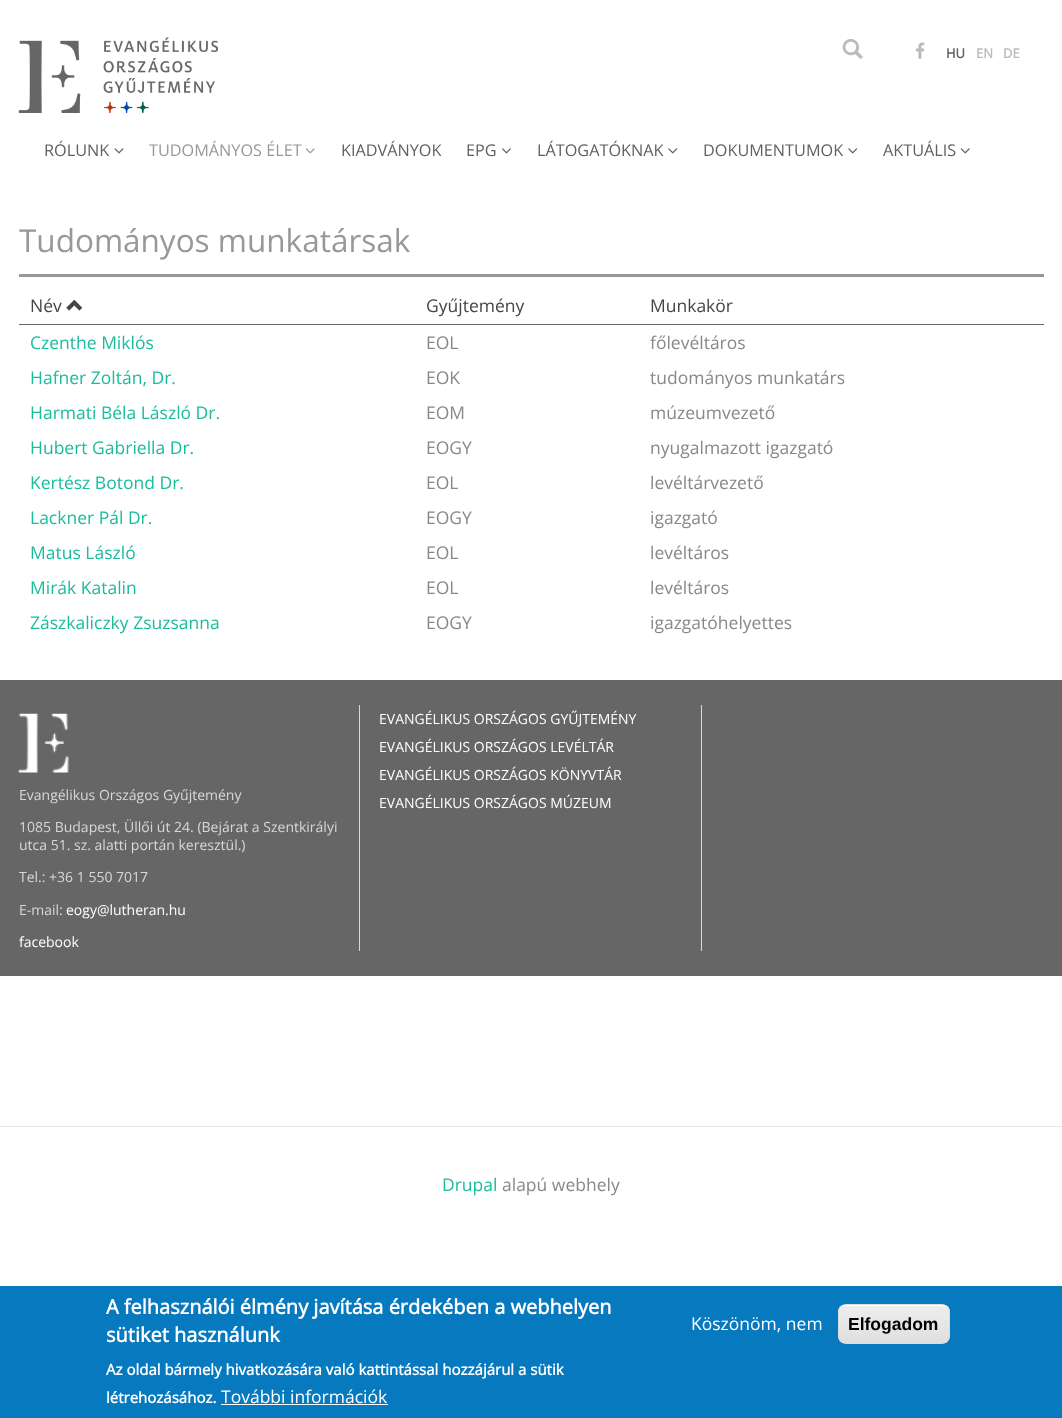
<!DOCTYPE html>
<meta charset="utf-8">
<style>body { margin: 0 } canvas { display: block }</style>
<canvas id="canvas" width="1062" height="1418"></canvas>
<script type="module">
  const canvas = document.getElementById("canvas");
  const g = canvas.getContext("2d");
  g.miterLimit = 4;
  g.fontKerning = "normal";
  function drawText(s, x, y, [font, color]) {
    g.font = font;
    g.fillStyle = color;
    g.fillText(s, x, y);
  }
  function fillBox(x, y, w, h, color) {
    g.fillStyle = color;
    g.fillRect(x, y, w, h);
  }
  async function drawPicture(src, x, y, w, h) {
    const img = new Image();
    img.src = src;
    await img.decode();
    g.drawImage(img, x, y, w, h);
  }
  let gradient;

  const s1 = ["bold 13px Open Sans", "#606060"];
  const s2 = ["bold 13px Open Sans", "#BBBBBB"];
  const s3 = ["16.25px Open Sans", "#606060"];
  const s4 = ["16.25px Open Sans", "#989898"];
  const s5 = ["31.5px Open Sans", "#989898"];
  const s6 = ["17.5px Open Sans", "#454545"];
  const s7 = ["17.5px Open Sans", "#1ABC9C"];
  const s8 = ["17.5px Open Sans", "#888888"];
  const s9 = ["14px Open Sans", "#FFFFFF"];
  const s10 = ["14px Open Sans", "#D8D8D8"];
  const s11 = ["bold 20px Open Sans", "#FFFFFF"];
  const s12 = ["bold 15px Open Sans", "#FFFFFF"];
  const s13 = ["17.5px Open Sans", "#FFFFFF"];
  const s14 = ["bold 17.5px Liberation Sans", "#000000"];

  fillBox(0, 0, 1062, 1418, "#FFFFFF");
  await drawPicture("pic1.png", 18, 37, 200, 76);
  await drawPicture("pic2.png", 842, 39, 21, 20);
  await drawPicture("pic3.png", 915, 42, 10, 17);
  drawText("HU", 946, 58, s1);
  drawText("EN", 976, 58, s2);
  drawText("DE", 1003, 58, s2);
  drawText("RÓLUNK", 44, 156, s3);
  await drawPicture("pic4.png", 114, 148, 10, 6);
  drawText("TUDOMÁNYOS ÉLET", 149, 156, s4);
  await drawPicture("pic5.png", 305, 148, 10, 6);
  drawText("KIADVÁNYOK", 341, 156, s3);
  drawText("EPG", 466, 156, s3);
  await drawPicture("pic6.png", 502, 148, 9, 6);
  drawText("LÁTOGATÓKNAK", 537, 156, s3);
  await drawPicture("pic7.png", 668, 148, 10, 6);
  drawText("DOKUMENTUMOK", 703, 156, s3);
  await drawPicture("pic7.png", 848, 148, 10, 6);
  drawText("AKTUÁLIS", 883, 156, s3);
  await drawPicture("pic8.png", 960, 148, 10, 6);
  fillBox(19, 274, 1025, 3, "#989898");
  drawText("Tudományos munkatársak", 19, 252, s5);
  drawText("Név", 30, 312, s6);
  await drawPicture("pic9.png", 66, 299, 17, 12);
  drawText("Gyűjtemény", 426, 312, s6);
  fillBox(19, 324, 1025, 1, "#666666");
  drawText("Munkakör", 650, 312, s6);
  drawText("Czenthe Miklós", 30, 349, s7);
  drawText("EOL", 426, 349, s8);
  drawText("főlevéltáros", 650, 349, s8);
  drawText("Hafner Zoltán, Dr.", 30, 384, s7);
  drawText("EOK", 426, 384, s8);
  drawText("tudományos munkatárs", 650, 384, s8);
  drawText("Harmati Béla László Dr.", 30, 419, s7);
  drawText("EOM", 426, 419, s8);
  drawText("múzeumvezető", 650, 419, s8);
  drawText("Hubert Gabriella Dr.", 30, 454, s7);
  drawText("EOGY", 426, 454, s8);
  drawText("nyugalmazott igazgató", 650, 454, s8);
  drawText("Kertész Botond Dr.", 30, 489, s7);
  drawText("EOL", 426, 489, s8);
  drawText("levéltárvezető", 650, 489, s8);
  drawText("Lackner Pál Dr.", 30, 524, s7);
  drawText("EOGY", 426, 524, s8);
  drawText("igazgató", 650, 524, s8);
  drawText("Matus László", 30, 559, s7);
  drawText("EOL", 426, 559, s8);
  drawText("levéltáros", 650, 559, s8);
  drawText("Mirák Katalin", 30, 594, s7);
  drawText("EOL", 426, 594, s8);
  drawText("levéltáros", 650, 594, s8);
  drawText("Zászkaliczky Zsuzsanna", 30, 629, s7);
  drawText("EOGY", 426, 629, s8);
  drawText("igazgatóhelyettes", 650, 629, s8);
  fillBox(0, 680, 1062, 296, "#666666");
  fillBox(701, 705, 1, 246, "#D8D8D8");
  drawText("EVANGÉLIKUS ORSZÁGOS GYŰJTEMÉNY", 379, 724, s9);
  drawText("EVANGÉLIKUS ORSZÁGOS LEVÉLTÁR", 379, 752, s9);
  drawText("EVANGÉLIKUS ORSZÁGOS KÖNYVTÁR", 379, 780, s9);
  drawText("EVANGÉLIKUS ORSZÁGOS MÚZEUM", 379, 808, s9);
  fillBox(359, 705, 1, 246, "#D8D8D8");
  await drawPicture("pic10.png", 18, 713, 51, 60);
  drawText("Evangélikus Országos Gyűjtemény", 19, 800, s10);
  drawText("1085 Budapest, Üllői út 24. (Bejárat a Szentkirályi", 19, 832, s10);
  drawText("utca 51. sz. alatti portán keresztül.)", 19, 850, s10);
  drawText("Tel.: +36 1 550 7017", 19, 882, s10);
  drawText("E-mail:", 19, 915, s10);
  drawText("eogy@lutheran.hu", 66, 915, s9);
  drawText("facebook", 19, 947, s9);
  fillBox(0, 1126, 1062, 1, "#E5E5E5");
  drawText("Drupal", 442, 1191, s7);
  drawText("alapú webhely", 502, 1191, s8);
  fillBox(0, 1286, 1062, 132, "#0779BF");
  drawText("A felhasználói élmény javítása érdekében a webhelyen", 106, 1314, s11);
  drawText("sütiket használunk", 106, 1342, s11);
  drawText("Az oldal bármely hivatkozására való kattintással hozzájárul a sütik", 106, 1375, s12);
  drawText("létrehozásához.", 106, 1403, s12);
  drawText("További információk", 221, 1403, s13);
  fillBox(221, 1404, 167, 1, "#FFFFFF");
  drawText("Köszönöm, nem", 691, 1330, s13);
  g.save();
  g.beginPath();
  g.roundRect(838, 1304, 112, 40, 8);
  g.clip();
  gradient = g.createLinearGradient(894, 1305, 894, 1343);
  gradient.addColorStop(0.05, "#EDEDED");
  gradient.addColorStop(1, "#DFDFDF");
  g.fillStyle = gradient;
  g.fillRect(838, 1305, 112, 38);
  g.restore();
  g.beginPath();
  g.moveTo(845, 1306);
  g.lineTo(942, 1306);
  g.bezierCurveTo(946, 1306, 949, 1309, 949, 1312);
  g.bezierCurveTo(949, 1301, 933, 1305, 927, 1305);
  g.lineTo(861, 1305);
  g.bezierCurveTo(855, 1305, 839, 1301, 839, 1312);
  g.bezierCurveTo(839, 1309, 842, 1306, 845, 1306);
  g.closePath();
  g.fill();
  g.beginPath();
  g.roundRect(838.5, 1304.5, 111, 39, 7.5);
  g.strokeStyle = "#DCDCDC";
  g.stroke();
  drawText("Elfogadom", 848, 1330, s14);
</script>
